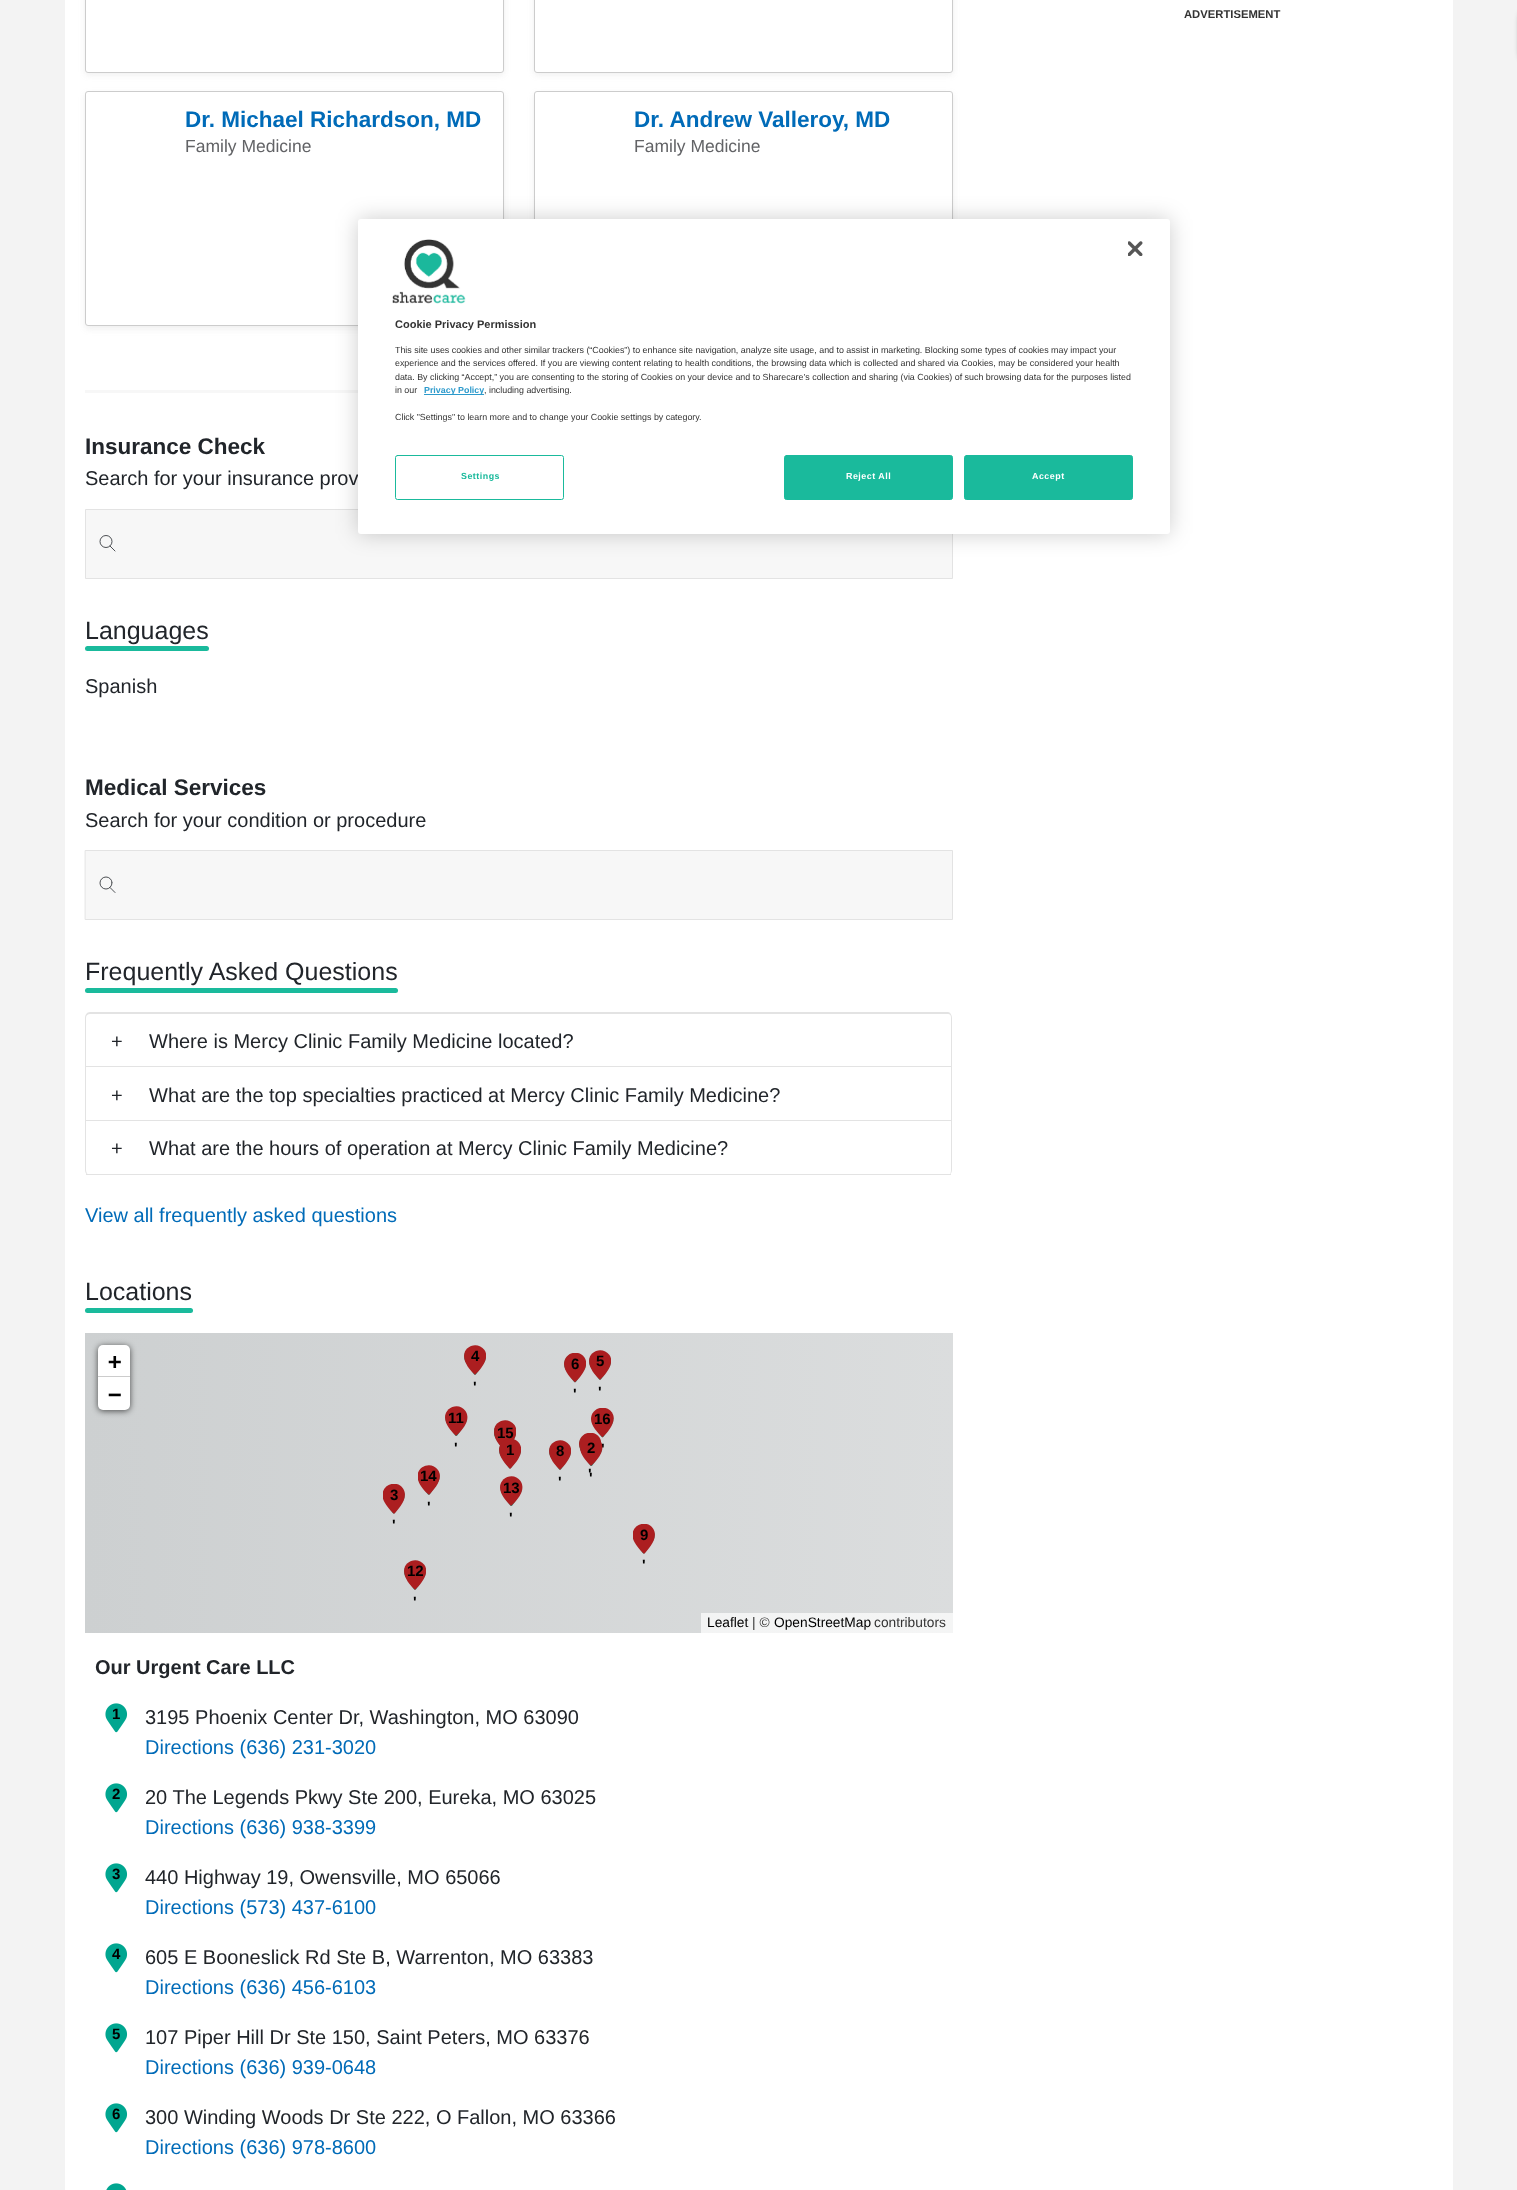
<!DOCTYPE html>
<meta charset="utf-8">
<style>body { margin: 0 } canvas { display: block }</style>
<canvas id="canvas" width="1517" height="2190"></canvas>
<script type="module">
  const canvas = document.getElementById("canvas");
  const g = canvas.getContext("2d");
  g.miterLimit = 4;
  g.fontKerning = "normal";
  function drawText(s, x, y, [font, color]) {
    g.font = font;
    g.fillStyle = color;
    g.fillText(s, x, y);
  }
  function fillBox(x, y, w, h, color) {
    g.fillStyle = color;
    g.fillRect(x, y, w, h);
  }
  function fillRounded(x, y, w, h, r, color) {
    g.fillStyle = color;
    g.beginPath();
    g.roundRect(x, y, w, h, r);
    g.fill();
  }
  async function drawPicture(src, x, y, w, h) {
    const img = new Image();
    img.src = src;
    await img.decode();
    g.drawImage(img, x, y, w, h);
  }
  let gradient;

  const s1 = ["bold 11.25px Liberation Sans", "#333333"];
  const s2 = ["bold 22.5px Liberation Sans", "#006BB8"];
  const s3 = ["17.5px Liberation Sans", "#626366"];
  const s4 = ["bold 22.5px Liberation Sans", "#21252A"];
  const s5 = ["20px Liberation Sans", "#21252A"];
  const s6 = ["25px Liberation Sans", "#21252A"];
  const s7 = ["20px Liberation Sans", "#006BB8"];
  const s8 = ["bold 15px Liberation Sans", "#000000"];
  const s9 = ["bold 22.5px DejaVu Sans Mono", "#000000"];
  const s10 = ["13.75px Liberation Sans", "#000000"];
  const s11 = ["13.75px Liberation Sans", "#333333"];
  const s12 = ["bold 20px Liberation Sans", "#21252A"];
  const s13 = ["bold 11px Liberation Sans", "#333333"];
  const s14 = ["8.9px Liberation Sans", "#333333"];
  const s15 = ["bold 8.9px Liberation Sans", "#2C9ACC"];
  const s16 = ["bold 8.9px Liberation Sans", "#1ABA9C"];
  const s17 = ["bold 8.9px Liberation Sans", "#FFFFFF"];

  fillBox(0, 0, 1517, 2190, "#F3F3F3");
  fillBox(65, 0, 1388, 2190, "#FFFFFF");
  drawText("ADVERTISEMENT", 1184, 18, s1);
  g.save();
  g.beginPath();
  g.moveTo(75, 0);
  g.lineTo(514, 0);
  g.lineTo(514, 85);
  g.lineTo(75, 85);
  g.closePath();
  g.moveTo(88, -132);
  g.lineTo(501, -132);
  g.bezierCurveTo(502.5, -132, 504, -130.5, 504, -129);
  g.lineTo(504, 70);
  g.bezierCurveTo(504, 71.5, 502.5, 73, 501, 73);
  g.lineTo(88, 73);
  g.bezierCurveTo(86.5, 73, 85, 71.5, 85, 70);
  g.lineTo(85, -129);
  g.bezierCurveTo(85, -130.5, 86.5, -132, 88, -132);
  g.closePath();
  g.clip("evenodd");
  g.fillStyle = "rgba(135, 135, 135, 0.13)";
  g.filter = "blur(3px)";
  g.beginPath();
  g.roundRect(85, -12, 419, 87, 3);
  g.fill();
  g.filter = "none";
  g.restore();
  g.beginPath();
  g.roundRect(85.5, -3.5, 418, 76, 2.5);
  g.strokeStyle = "#CCCCCC";
  g.stroke();
  g.save();
  g.beginPath();
  g.moveTo(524, 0);
  g.lineTo(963, 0);
  g.lineTo(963, 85);
  g.lineTo(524, 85);
  g.closePath();
  g.moveTo(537, -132);
  g.lineTo(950, -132);
  g.bezierCurveTo(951.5, -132, 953, -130.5, 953, -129);
  g.lineTo(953, 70);
  g.bezierCurveTo(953, 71.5, 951.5, 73, 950, 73);
  g.lineTo(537, 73);
  g.bezierCurveTo(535.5, 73, 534, 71.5, 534, 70);
  g.lineTo(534, -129);
  g.bezierCurveTo(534, -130.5, 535.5, -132, 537, -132);
  g.closePath();
  g.clip("evenodd");
  g.fillStyle = "rgba(135, 135, 135, 0.13)";
  g.filter = "blur(3px)";
  g.beginPath();
  g.roundRect(534, -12, 419, 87, 3);
  g.fill();
  g.filter = "none";
  g.restore();
  g.beginPath();
  g.roundRect(534.5, -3.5, 418, 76, 2.5);
  g.stroke();
  g.save();
  g.beginPath();
  g.moveTo(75, 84);
  g.lineTo(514, 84);
  g.lineTo(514, 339);
  g.lineTo(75, 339);
  g.closePath();
  g.moveTo(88, 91);
  g.lineTo(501, 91);
  g.bezierCurveTo(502.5, 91, 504, 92.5, 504, 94);
  g.lineTo(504, 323);
  g.bezierCurveTo(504, 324.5, 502.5, 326, 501, 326);
  g.lineTo(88, 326);
  g.bezierCurveTo(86.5, 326, 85, 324.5, 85, 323);
  g.lineTo(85, 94);
  g.bezierCurveTo(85, 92.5, 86.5, 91, 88, 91);
  g.closePath();
  g.clip("evenodd");
  g.fillStyle = "rgba(135, 135, 135, 0.13)";
  g.filter = "blur(3px)";
  g.beginPath();
  g.roundRect(85, 94, 419, 235, 3);
  g.fill();
  g.filter = "none";
  g.restore();
  g.beginPath();
  g.roundRect(85.5, 91.5, 418, 234, 2.5);
  g.stroke();
  drawText("Dr. Michael Richardson, MD", 185, 127, s2);
  drawText("Family Medicine", 185, 152, s3);
  g.save();
  g.beginPath();
  g.moveTo(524, 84);
  g.lineTo(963, 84);
  g.lineTo(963, 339);
  g.lineTo(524, 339);
  g.closePath();
  g.moveTo(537, 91);
  g.lineTo(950, 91);
  g.bezierCurveTo(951.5, 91, 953, 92.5, 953, 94);
  g.lineTo(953, 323);
  g.bezierCurveTo(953, 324.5, 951.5, 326, 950, 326);
  g.lineTo(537, 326);
  g.bezierCurveTo(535.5, 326, 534, 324.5, 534, 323);
  g.lineTo(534, 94);
  g.bezierCurveTo(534, 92.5, 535.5, 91, 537, 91);
  g.closePath();
  g.clip("evenodd");
  g.fillStyle = "rgba(135, 135, 135, 0.13)";
  g.filter = "blur(3px)";
  g.beginPath();
  g.roundRect(534, 94, 419, 235, 3);
  g.fill();
  g.filter = "none";
  g.restore();
  g.beginPath();
  g.roundRect(534.5, 91.5, 418, 234, 2.5);
  g.stroke();
  drawText("Dr. Andrew Valleroy, MD", 634, 127, s2);
  drawText("Family Medicine", 634, 152, s3);
  fillBox(85, 390, 273, 3, "#F7F7F7");
  drawText("Insurance Check", 85, 454, s4);
  drawText("Search for your insurance prov", 85, 485, s5);
  g.fillStyle = "#F7F7F7";
  g.beginPath();
  g.rect(85.5, 509.5, 867, 69);
  g.fill();
  g.strokeStyle = "#E3E3E3";
  g.stroke();
  g.beginPath();
  g.arc(106, 541.5, 6, 0, Math.PI * 2);
  g.strokeStyle = "#212529";
  g.lineWidth = 0.8;
  g.stroke();
  g.beginPath();
  g.moveTo(110, 546);
  g.lineTo(115, 551);
  g.lineCap = "round";
  g.stroke();
  drawText("Languages", 85, 639, s6);
  fillRounded(85, 646, 124, 5, 2.5, "#1ABA9C");
  drawText("Spanish", 85, 693, s5);
  drawText("Medical Services", 85, 795, s4);
  drawText("Search for your condition or procedure", 85, 827, s5);
  g.fillStyle = "#F7F7F7";
  g.beginPath();
  g.rect(85.5, 850.5, 867, 69);
  g.fill();
  g.strokeStyle = "#E3E3E3";
  g.lineWidth = 1;
  g.stroke();
  g.beginPath();
  g.arc(106, 883, 6, 0, Math.PI * 2);
  g.strokeStyle = "#212529";
  g.lineWidth = 0.8;
  g.stroke();
  g.beginPath();
  g.moveTo(110, 887.5);
  g.lineTo(115, 892.5);
  g.stroke();
  drawText("Frequently Asked Questions", 85, 980, s6);
  fillRounded(85, 988, 313, 5, 2.5, "#1ABA9C");
  g.fillStyle = "#E3E3E3";
  g.beginPath();
  g.moveTo(90, 1012);
  g.lineTo(948, 1012);
  g.bezierCurveTo(950, 1012, 952, 1015, 952, 1018);
  g.lineTo(952, 1170);
  g.bezierCurveTo(952, 1173, 950, 1175, 948, 1175);
  g.lineTo(90, 1175);
  g.bezierCurveTo(87, 1175, 85, 1173, 85, 1170);
  g.lineTo(85, 1018);
  g.bezierCurveTo(85, 1015, 87, 1012, 90, 1012);
  g.closePath();
  g.moveTo(90, 1014);
  g.lineTo(948, 1014);
  g.bezierCurveTo(950, 1014, 951, 1015, 951, 1018);
  g.lineTo(951, 1170);
  g.bezierCurveTo(951, 1173, 950, 1175, 948, 1175);
  g.lineTo(90, 1175);
  g.bezierCurveTo(88, 1175, 86, 1173, 86, 1170);
  g.lineTo(86, 1018);
  g.bezierCurveTo(86, 1015, 88, 1014, 90, 1014);
  g.closePath();
  g.fill("evenodd");
  fillBox(86, 1066, 865, 1, "#E3E3E3");
  drawText("+", 111, 1048, s5);
  drawText("Where is Mercy Clinic Family Medicine located?", 149, 1048, s5);
  fillBox(86, 1120, 865, 1, "#E3E3E3");
  drawText("+", 111, 1102, s5);
  drawText("What are the top specialties practiced at Mercy Clinic Family Medicine?", 149, 1102, s5);
  fillBox(86, 1174, 865, 1, "#E3E3E3");
  drawText("+", 111, 1155, s5);
  drawText("What are the hours of operation at Mercy Clinic Family Medicine?", 149, 1155, s5);
  drawText("View all frequently asked questions", 85, 1222, s7);
  drawText("Locations", 85, 1300, s6);
  fillRounded(85, 1308, 108, 5, 2.5, "#1ABA9C");
  gradient = g.createLinearGradient(85, 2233, 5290, 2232);
  gradient.addColorStop(0, "#CDD0D1");
  gradient.addColorStop(0.5, "#F7F7F7");
  gradient.addColorStop(1, "#CDD0D1");
  g.fillStyle = gradient;
  g.fillRect(85, 1333, 868, 300);
  gradient = g.createLinearGradient(85, 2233, 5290, 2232);
  gradient.addColorStop(0, "#F0F1F1");
  gradient.addColorStop(0.5, "#FDFDFD");
  gradient.addColorStop(1, "#F0F1F1");
  g.fillStyle = gradient;
  g.fillRect(701, 1613, 252, 20);
  await drawPicture("pic1.png", 464, 1345, 22, 30);
  g.save();
  g.beginPath();
  g.rect(464, 1345, 22, 30);
  g.clip();
  g.fillStyle = "#AC1E20";
  g.beginPath();
  g.moveTo(464, 1356);
  g.bezierCurveTo(464, 1363.5, 470.5, 1370.5, 475, 1375);
  g.bezierCurveTo(481, 1369, 490, 1358.5, 484.5, 1350);
  g.bezierCurveTo(478, 1341, 464, 1345.5, 464, 1356);
  g.closePath();
  g.fill();
  g.restore();
  drawText("4", 471, 1361, s8);
  drawText("'", 473, 1392, s8);
  await drawPicture("pic2.png", 564, 1353, 22, 30);
  g.save();
  g.beginPath();
  g.rect(564, 1353, 22, 30);
  g.clip();
  g.fillStyle = "#AC1E20";
  g.beginPath();
  g.moveTo(564, 1364);
  g.bezierCurveTo(564, 1371, 570.5, 1378, 575, 1382.5);
  g.bezierCurveTo(581, 1376.5, 590, 1366, 584.5, 1357.5);
  g.bezierCurveTo(578, 1348.5, 564, 1353, 564, 1364);
  g.closePath();
  g.fill();
  g.restore();
  drawText("6", 571, 1369, s8);
  drawText("'", 573, 1399, s8);
  await drawPicture("pic3.png", 589, 1350, 22, 30);
  g.save();
  g.beginPath();
  g.rect(589, 1350, 22, 30);
  g.clip();
  g.fillStyle = "#AC1E20";
  g.beginPath();
  g.moveTo(589, 1361);
  g.bezierCurveTo(589, 1368.5, 595.5, 1375.5, 600, 1380);
  g.bezierCurveTo(606, 1374, 615, 1363.5, 609.5, 1355);
  g.bezierCurveTo(603, 1346, 589, 1350.5, 589, 1361);
  g.closePath();
  g.fill();
  g.restore();
  drawText("5", 596, 1366, s8);
  drawText("'", 598, 1397, s8);
  await drawPicture("pic4.png", 445, 1407, 23, 29);
  g.fillStyle = "#AC1E20";
  g.beginPath();
  g.moveTo(445, 1417.5);
  g.bezierCurveTo(445, 1424.5, 451.5, 1431.5, 456, 1436);
  g.bezierCurveTo(462, 1430.5, 471.5, 1420, 465.5, 1411);
  g.bezierCurveTo(459.5, 1402, 445, 1406.5, 445, 1417.5);
  g.closePath();
  g.fill();
  drawText("11", 448, 1423, s8);
  drawText("'", 454, 1453, s8);
  await drawPicture("pic5.png", 494, 1420, 22, 18);
  g.save();
  g.beginPath();
  g.rect(494, 1420, 22, 30);
  g.clip();
  g.fillStyle = "#AC1E20";
  g.beginPath();
  g.moveTo(494, 1431);
  g.bezierCurveTo(494, 1438.5, 500.5, 1445.5, 505, 1450);
  g.bezierCurveTo(511, 1444, 520, 1433.5, 514.5, 1425);
  g.bezierCurveTo(508, 1416, 494, 1420.5, 494, 1431);
  g.closePath();
  g.fill();
  g.restore();
  await drawPicture("pic6.png", 591, 1408, 23, 30);
  g.save();
  g.beginPath();
  g.rect(591, 1408, 23, 30);
  g.clip();
  g.fillStyle = "#AC1E20";
  g.beginPath();
  g.moveTo(591, 1419);
  g.bezierCurveTo(591, 1426, 598, 1433, 602.5, 1437.5);
  g.bezierCurveTo(608.5, 1431.5, 617.5, 1421, 612, 1412.5);
  g.bezierCurveTo(605.5, 1403.5, 591, 1408, 591, 1419);
  g.closePath();
  g.fill();
  g.restore();
  drawText("16", 594, 1424, s8);
  drawText("'", 601, 1454, s8);
  await drawPicture("pic7.png", 494, 1422, 22, 24);
  g.save();
  g.beginPath();
  g.rect(494, 1421, 22, 30);
  g.clip();
  g.fillStyle = "#AC1E20";
  g.beginPath();
  g.moveTo(494, 1432.5);
  g.bezierCurveTo(494, 1439.5, 500.5, 1446.5, 505, 1451);
  g.bezierCurveTo(511, 1445.5, 520, 1435, 514.5, 1426);
  g.bezierCurveTo(508, 1417, 494, 1421.5, 494, 1432.5);
  g.closePath();
  g.fill();
  g.restore();
  drawText("15", 497, 1438, s8);
  await drawPicture("pic8.png", 499, 1439, 22, 30);
  g.save();
  g.beginPath();
  g.rect(499, 1439, 22, 30);
  g.clip();
  g.fillStyle = "#AC1E20";
  g.beginPath();
  g.moveTo(499, 1450);
  g.bezierCurveTo(499, 1457, 505.5, 1464, 510, 1469);
  g.bezierCurveTo(516, 1463, 525, 1452.5, 519.5, 1443.5);
  g.bezierCurveTo(513, 1434.5, 499, 1439, 499, 1450);
  g.closePath();
  g.fill();
  g.restore();
  drawText("1", 506, 1455, s8);
  await drawPicture("pic9.png", 549, 1440, 22, 30);
  g.save();
  g.beginPath();
  g.rect(549, 1440, 22, 30);
  g.clip();
  g.fillStyle = "#AC1E20";
  g.beginPath();
  g.moveTo(549, 1451);
  g.bezierCurveTo(549, 1458.5, 555.5, 1465.5, 560, 1470);
  g.bezierCurveTo(566, 1464, 575, 1453.5, 569.5, 1445);
  g.bezierCurveTo(563, 1436, 549, 1440.5, 549, 1451);
  g.closePath();
  g.fill();
  g.restore();
  drawText("8", 556, 1456, s8);
  drawText("'", 558, 1487, s8);
  await drawPicture("pic14.png", 579, 1433, 22, 17);
  g.save();
  g.beginPath();
  g.rect(579, 1433, 22, 30);
  g.clip();
  g.fillStyle = "#AC1E20";
  g.beginPath();
  g.moveTo(579, 1444);
  g.bezierCurveTo(579, 1451, 585.5, 1458, 590, 1462.5);
  g.bezierCurveTo(596, 1456.5, 605, 1446, 599.5, 1437.5);
  g.bezierCurveTo(593, 1428.5, 579, 1433, 579, 1444);
  g.closePath();
  g.fill();
  g.restore();
  await drawPicture("pic10.png", 580, 1437, 22, 29);
  g.fillStyle = "#AC1E20";
  g.beginPath();
  g.moveTo(580, 1447.5);
  g.bezierCurveTo(580, 1454.5, 586.5, 1461.5, 591, 1466);
  g.bezierCurveTo(597, 1460.5, 606.5, 1450, 600.5, 1441);
  g.bezierCurveTo(594.5, 1432, 580, 1436.5, 580, 1447.5);
  g.closePath();
  g.fill();
  drawText("2", 587, 1453, s8);
  drawText("'", 589, 1483, s8);
  await drawPicture("pic11.png", 383, 1484, 22, 30);
  g.save();
  g.beginPath();
  g.rect(383, 1484, 22, 30);
  g.clip();
  g.fillStyle = "#AC1E20";
  g.beginPath();
  g.moveTo(382.5, 1495);
  g.bezierCurveTo(382.5, 1502, 389, 1509, 394, 1514);
  g.bezierCurveTo(399.5, 1508, 409, 1497.5, 403, 1488.5);
  g.bezierCurveTo(397, 1479.5, 382.5, 1484, 382.5, 1495);
  g.closePath();
  g.fill();
  g.restore();
  drawText("3", 390, 1500, s8);
  drawText("'", 392, 1530, s8);
  await drawPicture("pic12.png", 418, 1465, 22, 30);
  g.save();
  g.beginPath();
  g.rect(418, 1465, 22, 30);
  g.clip();
  g.fillStyle = "#AC1E20";
  g.beginPath();
  g.moveTo(417.5, 1476);
  g.bezierCurveTo(417.5, 1483.5, 424, 1490.5, 429, 1495);
  g.bezierCurveTo(434.5, 1489, 444, 1478.5, 438, 1470);
  g.bezierCurveTo(432, 1461, 417.5, 1465.5, 417.5, 1476);
  g.closePath();
  g.fill();
  g.restore();
  drawText("14", 420, 1481, s8);
  drawText("'", 427, 1512, s8);
  await drawPicture("pic13.png", 500, 1477, 23, 29);
  g.fillStyle = "#AC1E20";
  g.beginPath();
  g.moveTo(500, 1487.5);
  g.bezierCurveTo(500, 1494.5, 506.5, 1501.5, 511, 1506);
  g.bezierCurveTo(517, 1500.5, 526.5, 1490, 520.5, 1481);
  g.bezierCurveTo(514.5, 1472, 500, 1476.5, 500, 1487.5);
  g.closePath();
  g.fill();
  drawText("13", 503, 1493, s8);
  drawText("'", 509, 1523, s8);
  drawText("'", 588, 1479, s8);
  await drawPicture("pic15.png", 633, 1524, 22, 30);
  g.save();
  g.beginPath();
  g.rect(633, 1524, 22, 30);
  g.clip();
  g.fillStyle = "#AC1E20";
  g.beginPath();
  g.moveTo(632.5, 1535);
  g.bezierCurveTo(632.5, 1542, 639, 1549, 644, 1554);
  g.bezierCurveTo(649.5, 1548, 659, 1537.5, 653, 1528.5);
  g.bezierCurveTo(647, 1519.5, 632.5, 1524, 632.5, 1535);
  g.closePath();
  g.fill();
  g.restore();
  drawText("9", 640, 1540, s8);
  drawText("'", 642, 1570, s8);
  await drawPicture("pic16.png", 404, 1560, 22, 30);
  g.save();
  g.beginPath();
  g.rect(404, 1560, 22, 30);
  g.clip();
  g.fillStyle = "#AC1E20";
  g.beginPath();
  g.moveTo(404, 1571);
  g.bezierCurveTo(404, 1578.5, 410.5, 1585.5, 415, 1590);
  g.bezierCurveTo(421, 1584, 430, 1573.5, 424.5, 1565);
  g.bezierCurveTo(418, 1556, 404, 1560.5, 404, 1571);
  g.closePath();
  g.fill();
  g.restore();
  drawText("12", 407, 1576, s8);
  drawText("'", 413, 1607, s8);
  g.fillStyle = "rgba(0, 0, 0, 0.65)";
  g.filter = "blur(3px)";
  g.beginPath();
  g.roundRect(98, 1346, 32, 65, 5);
  g.fill();
  g.filter = "none";
  g.fillStyle = "#FFFFFF";
  g.beginPath();
  g.roundRect(98, 1345, 32, 33, [5, 5, 0, 0]);
  g.fill();
  fillBox(98, 1376, 32, 1, "#CCCCCC");
  drawText("+", 108, 1369, s9);
  g.fillStyle = "#FFFFFF";
  g.beginPath();
  g.roundRect(98, 1378, 32, 32, [0, 0, 5, 5]);
  g.fill();
  drawText("−", 108, 1402, s9);
  drawText("Leaflet", 707, 1627, s10);
  drawText("| ©", 752, 1627, s11);
  drawText("OpenStreetMap", 774, 1627, s10);
  drawText("contributors", 874, 1627, s11);
  drawText("Our Urgent Care LLC", 95, 1674, s12);
  await drawPicture("pic17.png", 105, 1703, 23, 30);
  drawText("1", 112, 1719, s8);
  drawText("3195 Phoenix Center Dr, Washington, MO 63090", 145, 1724, s5);
  drawText("Directions (636) 231-3020", 145, 1754, s7);
  await drawPicture("pic17.png", 105, 1783, 23, 30);
  drawText("2", 112, 1799, s8);
  drawText("20 The Legends Pkwy Ste 200, Eureka, MO 63025", 145, 1804, s5);
  drawText("Directions (636) 938-3399", 145, 1834, s7);
  await drawPicture("pic17.png", 105, 1863, 23, 30);
  drawText("3", 112, 1879, s8);
  drawText("440 Highway 19, Owensville, MO 65066", 145, 1884, s5);
  drawText("Directions (573) 437-6100", 145, 1914, s7);
  await drawPicture("pic17.png", 105, 1943, 23, 30);
  drawText("4", 112, 1959, s8);
  drawText("605 E Booneslick Rd Ste B, Warrenton, MO 63383", 145, 1964, s5);
  drawText("Directions (636) 456-6103", 145, 1994, s7);
  await drawPicture("pic17.png", 105, 2023, 23, 30);
  drawText("5", 112, 2039, s8);
  drawText("107 Piper Hill Dr Ste 150, Saint Peters, MO 63376", 145, 2044, s5);
  drawText("Directions (636) 939-0648", 145, 2074, s7);
  await drawPicture("pic17.png", 105, 2103, 23, 30);
  drawText("6", 112, 2119, s8);
  drawText("300 Winding Woods Dr Ste 222, O Fallon, MO 63366", 145, 2124, s5);
  drawText("Directions (636) 978-8600", 145, 2154, s7);
  await drawPicture("pic18.png", 106, 2183, 21, 7);
  g.fillStyle = "rgba(0, 0, 0, 0.2)";
  g.filter = "blur(2px)";
  g.beginPath();
  g.roundRect(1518, 1, 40, 69, 34.5);
  g.fill();
  g.filter = "none";
  g.filter = "blur(11px)";
  g.beginPath();
  g.roundRect(358, 219, 812, 315, 3);
  g.fill();
  g.filter = "none";
  fillRounded(358, 219, 812, 315, 3, "#FFFFFF");
  await drawPicture("pic19.png", 1128, 241, 15, 15);
  await drawPicture("pic20.png", 392, 239, 74, 65);
  drawText("Cookie Privacy Permission", 395, 328, s13);
  drawText("This site uses cookies and other similar trackers (“Cookies”) to enhance site navigation, analyze site usage, and to assist in marketing. Blocking some types of cookies may impact your", 395, 353, s14);
  drawText("experience and the services offered. If you are viewing content relating to health conditions, the browsing data which is collected and shared via Cookies, may be considered your health", 395, 366, s14);
  drawText("data. By clicking “Accept,” you are consenting to the storing of Cookies on your device and to Sharecare’s collection and sharing (via Cookies) of such browsing data for the purposes listed", 395, 380, s14);
  drawText("in our", 395, 393, s14);
  fillBox(424, 394, 60, 1, "#2C9ACC");
  drawText("Privacy Policy", 424, 393, s15);
  drawText(", including advertising.", 484, 393, s14);
  drawText("Click \"Settings\" to learn more and to change your Cookie settings by category.", 395, 420, s14);
  g.beginPath();
  g.roundRect(395.5, 455.5, 168, 44, 2);
  g.strokeStyle = "#1ABA9C";
  g.lineWidth = 1;
  g.stroke();
  g.letterSpacing = "0.5px";
  drawText("Settings", 461, 479, s16);
  g.beginPath();
  g.roundRect(784.5, 455.5, 168, 44, 2);
  g.fill();
  g.stroke();
  drawText("Reject All", 846, 479, s17);
  g.fillStyle = "#1ABA9C";
  g.beginPath();
  g.roundRect(964.5, 455.5, 168, 44, 2);
  g.fill();
  g.stroke();
  drawText("Accept", 1032, 479, s17);
</script>
